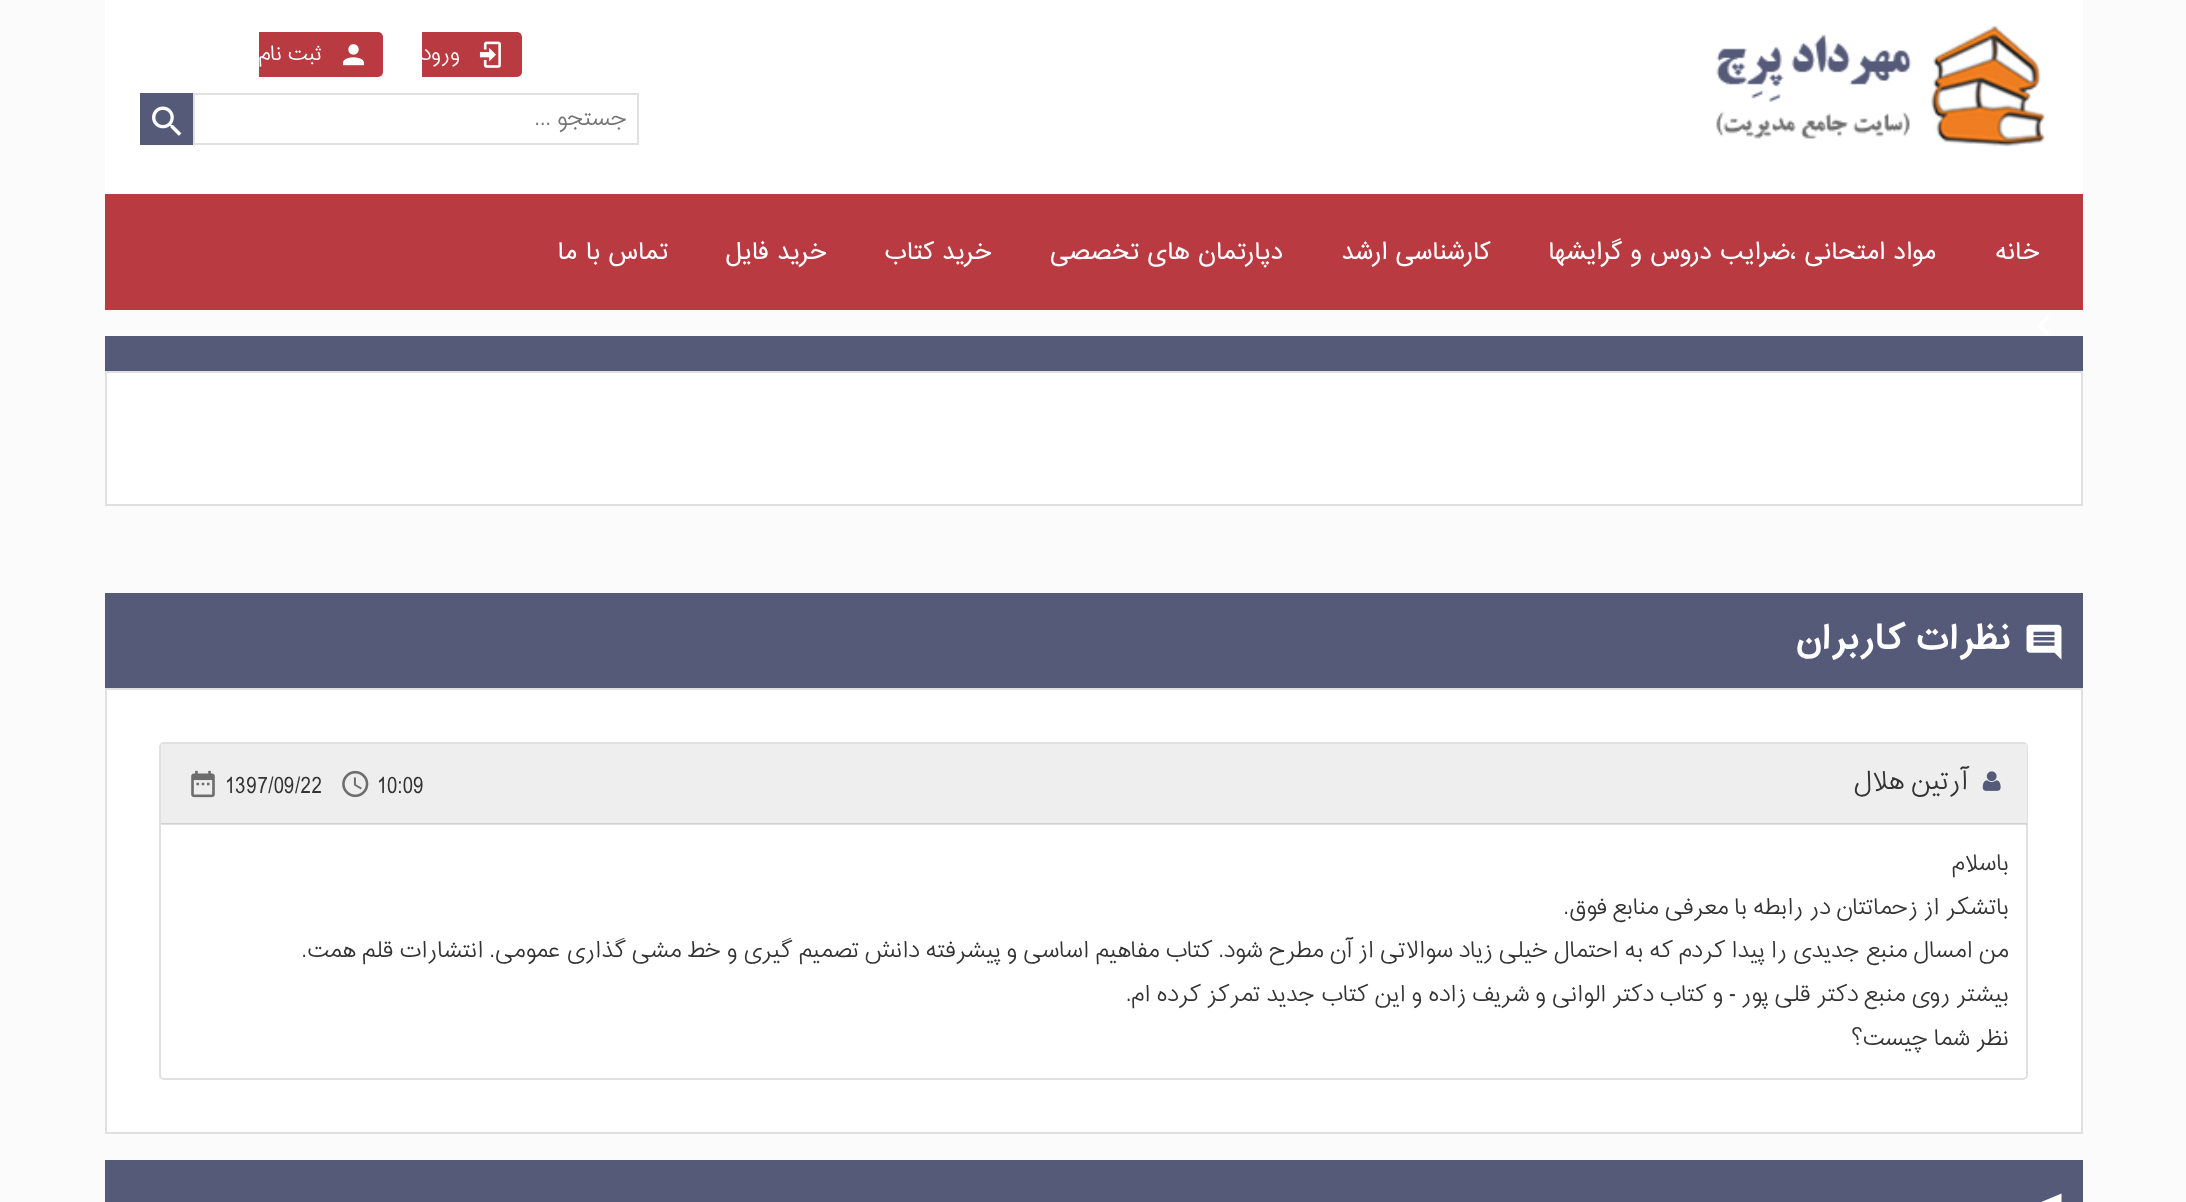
<!DOCTYPE html>
<meta charset="utf-8">
<style>body { margin: 0 } canvas { display: block }</style>
<canvas id="canvas" width="2186" height="1202"></canvas>
<script type="module">
  const canvas = document.getElementById("canvas");
  const g = canvas.getContext("2d");
  g.miterLimit = 4;
  g.fontKerning = "normal";
  function drawText(s, x, y, [font, color]) {
    g.font = font;
    g.fillStyle = color;
    g.fillText(s, x, y);
  }
  function fillBox(x, y, w, h, color) {
    g.fillStyle = color;
    g.fillRect(x, y, w, h);
  }
  async function drawPicture(src, x, y, w, h) {
    const img = new Image();
    img.src = src;
    await img.decode();
    g.drawImage(img, x, y, w, h);
  }

  const s1 = ["300 21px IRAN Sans", "#FFFFFF"];
  const s2 = ["300 22.75px IRAN Sans", "#757575"];
  const s3 = ["22.75px IRANSans", "#FFFFFF"];
  const s4 = ["bold 36.75px IRAN Sans", "#FFFFFF"];
  const s5 = ["300 26.25px IRAN Sans", "#333333"];
  const s6 = ["300 22.75px IRAN Sans", "#333333"];

  fillBox(0, 0, 2186, 1202, "#FBFBFB");
  fillBox(105, 0, 1978, 194, "#FFFFFF");
  await drawPicture("pic1.png", 1716, 25, 329, 122);
  g.fillStyle = "#B93A41";
  g.beginPath();
  g.roundRect(422, 32, 100, 45, [0, 5, 5, 0]);
  g.fill();
  await drawPicture("pic2.png", 479, 41, 22, 27);
  g.direction = "rtl";
  drawText("ورود", 460, 60, s1);
  g.fillStyle = "#B93A41";
  g.beginPath();
  g.roundRect(259, 32, 124, 45, [0, 5, 5, 0]);
  g.fill();
  await drawPicture("pic3.png", 343, 44, 21, 22);
  drawText("ثبت نام", 322, 60, s1);
  g.strokeStyle = "#E0E0E0";
  g.lineWidth = 2;
  g.strokeRect(194, 94, 444, 50);
  drawText("جستجو ...", 628, 125, s2);
  fillBox(140, 93, 53, 52, "#555A78");
  await drawPicture("pic4.png", 152, 106, 30, 30);
  fillBox(105, 194, 1978, 116, "#B93A41");
  drawText("خانه", 2039, 259, s3);
  drawText("مواد امتحانی ،ضرایب دروس و گرایشها", 1936, 259, s3);
  drawText("کارشناسی ارشد", 1490, 259, s3);
  drawText("دپارتمان های تخصصی", 1283, 259, s3);
  drawText("خرید کتاب", 991, 259, s3);
  drawText("خرید فایل", 826, 259, s3);
  drawText("تماس با ما", 668, 259, s3);
  fillBox(105, 336, 1978, 35, "#555A78");
  g.fillStyle = "#FFFFFF";
  g.beginPath();
  g.moveTo(2050, 317.5);
  g.lineTo(2042, 325.5);
  g.lineTo(2050, 333.5);
  g.lineTo(2047.5, 336);
  g.lineTo(2037, 325.5);
  g.lineTo(2047.5, 315);
  g.closePath();
  g.fill();
  g.beginPath();
  g.rect(106, 372, 1976, 133);
  g.fill();
  g.stroke();
  fillBox(105, 593, 1978, 95, "#555A78");
  await drawPicture("pic5.png", 2026, 624, 36, 36);
  drawText("نظرات کاربران", 2012, 649, s4);
  g.beginPath();
  g.rect(106, 689, 1976, 444);
  g.fill();
  g.stroke();
  g.beginPath();
  g.roundRect(160, 743, 1867, 336, 4);
  g.stroke();
  fillBox(161, 744, 1866, 80, "#EEEEEE");
  fillBox(161, 823, 1866, 2, "rgba(0, 0, 0, 0.12)");
  await drawPicture("pic6.png", 1982, 771, 19, 20);
  drawText("آرتین هلال", 1968, 789, s5);
  g.direction = "ltr";
  drawText("10:09", 377, 793, s6);
  await drawPicture("pic7.png", 342, 770, 27, 28);
  drawText("1397/09/22", 225, 793, s6);
  await drawPicture("pic8.png", 191, 770, 24, 28);
  g.direction = "rtl";
  drawText("باسلام", 2009, 870, s6);
  drawText("باتشکر از زحماتتان در رابطه با معرفی منابع فوق.", 2009, 914, s6);
  drawText("من امسال منبع جدیدی را پیدا کردم که به احتمال خیلی زیاد سوالاتی از آن مطرح شود. کتاب مفاهیم اساسی و پیشرفته دانش تصمیم گیری و خط مشی گذاری عمومی. انتشارات قلم همت.", 2009, 957, s6);
  drawText("بیشتر روی منبع دکتر قلی پور - و کتاب دکتر الوانی و شریف زاده و این کتاب جدید تمرکز کرده ام.", 2009, 1001, s6);
  drawText("نظر شما چیست؟", 2009, 1045, s6);
  fillBox(105, 1160, 1978, 42, "#555A78");
  g.fillStyle = "#FFFFFF";
  g.beginPath();
  g.moveTo(2061.5, 1193.5);
  g.lineTo(2061.5, 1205.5);
  g.lineTo(2035, 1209);
  g.lineTo(2061.5, 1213);
  g.lineTo(2061.5, 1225);
  g.lineTo(2024.5, 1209);
  g.closePath();
  g.fill();
</script>
